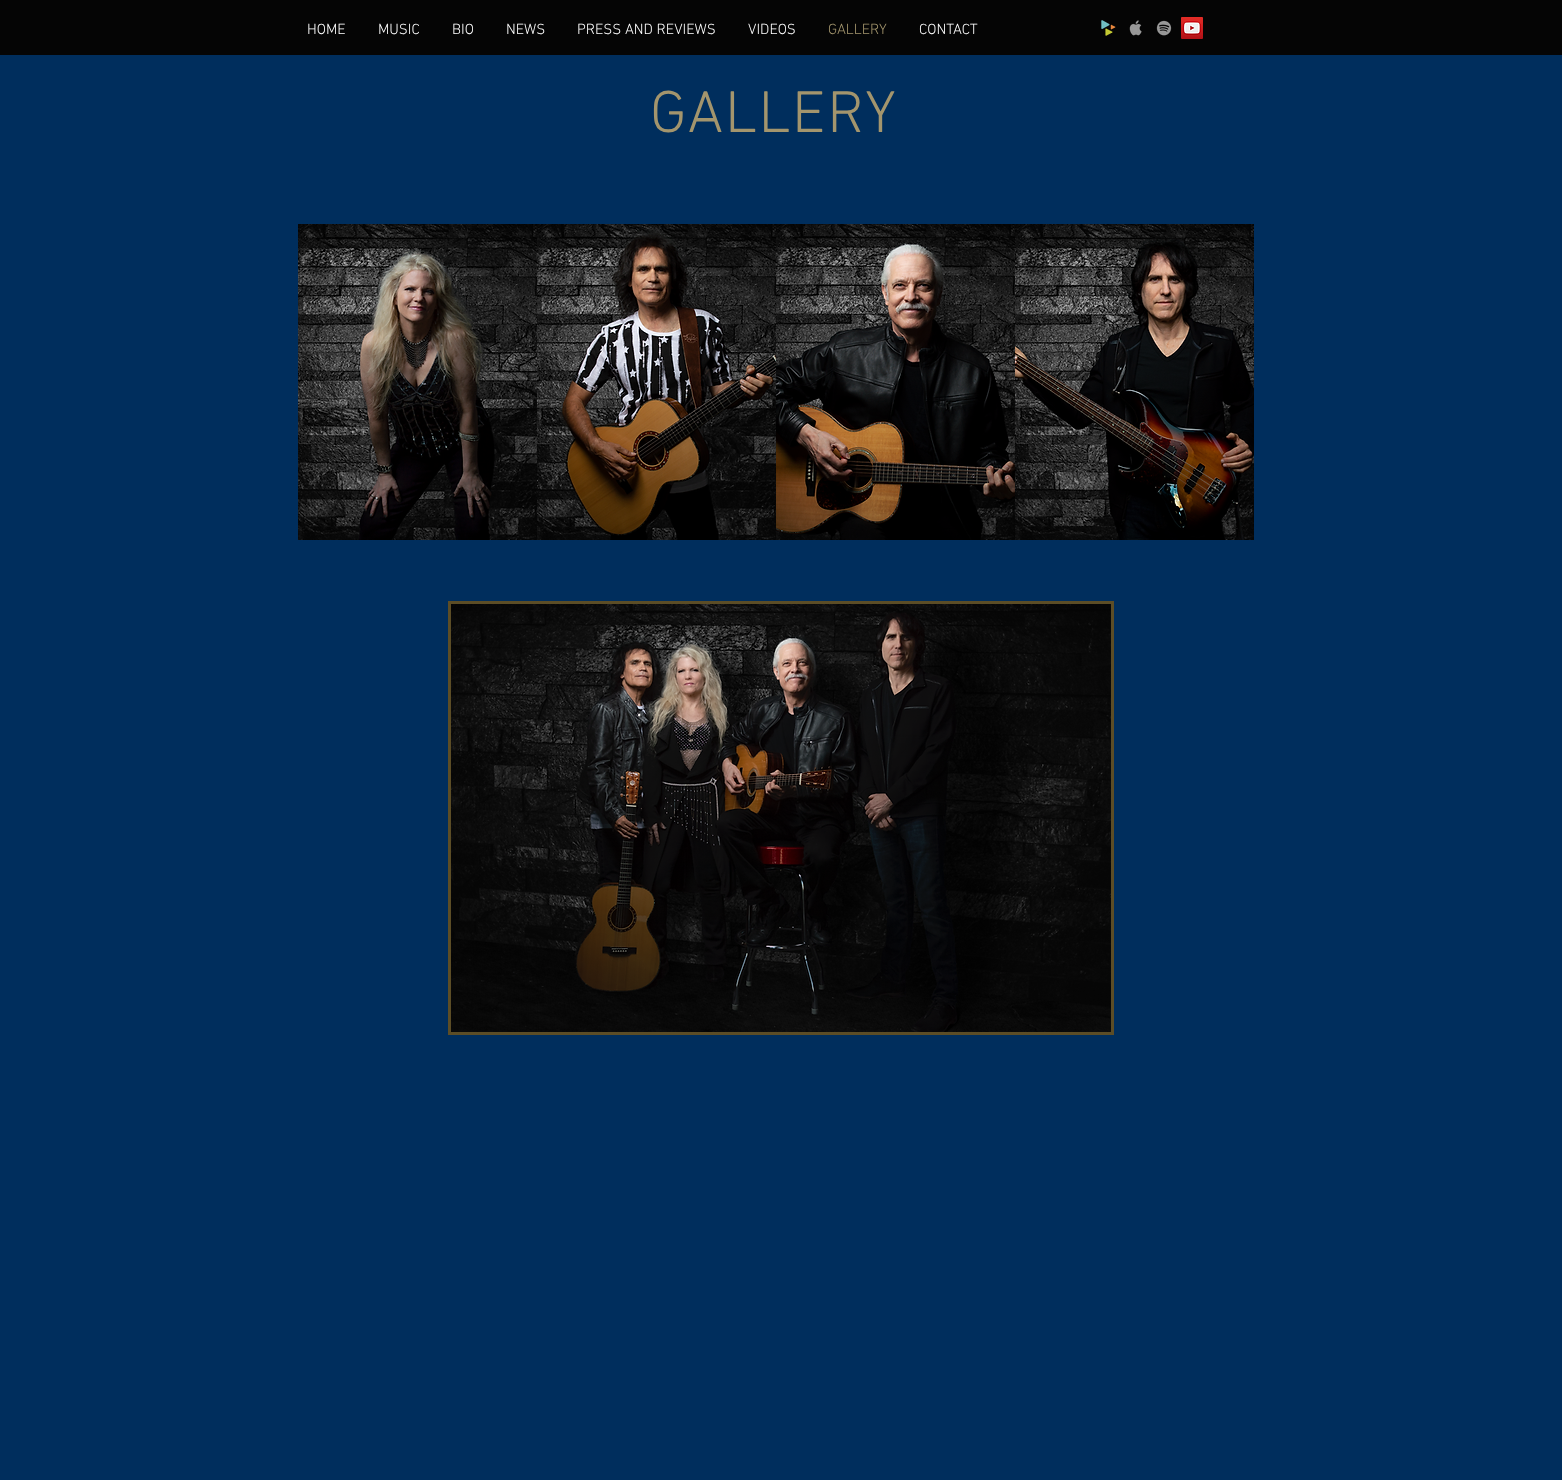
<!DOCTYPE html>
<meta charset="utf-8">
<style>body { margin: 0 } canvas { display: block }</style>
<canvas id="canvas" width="1562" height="1480"></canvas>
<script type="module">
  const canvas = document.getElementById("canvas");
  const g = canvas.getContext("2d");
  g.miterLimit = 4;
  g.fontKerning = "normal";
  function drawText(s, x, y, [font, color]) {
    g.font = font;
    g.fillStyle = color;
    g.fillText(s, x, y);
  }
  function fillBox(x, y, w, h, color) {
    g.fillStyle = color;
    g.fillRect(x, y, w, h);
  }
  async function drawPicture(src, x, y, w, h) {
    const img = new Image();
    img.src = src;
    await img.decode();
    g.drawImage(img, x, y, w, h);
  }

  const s1 = ["300 15px 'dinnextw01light'", "#FFFFFF"];
  const s2 = ["300 15px 'dinnextw01light'", "#A3956D"];
  const s3 = ["300 60px 'dinnextw01light'", "#A3956D"];
  const s4 = ["13px Liberation Sans", "#131313"];

  fillBox(0, 0, 1562, 1480, "#002E5D");
  fillBox(0, 0, 1562, 55, "#050505");
  drawText("HOME", 307, 34, s1);
  drawText("MUSIC", 378, 34, s1);
  drawText("BIO", 452, 34, s1);
  drawText("NEWS", 506, 34, s1);
  drawText("PRESS AND REVIEWS", 577, 34, s1);
  drawText("VIDEOS", 748, 34, s1);
  drawText("GALLERY", 828, 34, s2);
  drawText("CONTACT", 919, 34, s1);
  await drawPicture("pic1.png", 1101, 20, 15, 16);
  await drawPicture("pic2.png", 1129, 20, 13, 16);
  await drawPicture("pic3.png", 1156, 20, 16, 16);
  await drawPicture("pic4.png", 1181, 17, 22, 22);
  g.letterSpacing = "1.75px";
  drawText("GALLERY", 650, 132, s3);
  await drawPicture("pic5.png", 298, 224, 239, 316);
  await drawPicture("pic6.png", 537, 224, 239, 316);
  await drawPicture("pic7.png", 776, 224, 239, 316);
  await drawPicture("pic8.png", 1015, 224, 239, 316);
  g.letterSpacing = "0px";
  drawText("1", 1231, 529, s4);
  fillBox(448, 601, 666, 434, "#5C4D26");
  await drawPicture("pic9.png", 451, 604, 660, 428);
</script>
